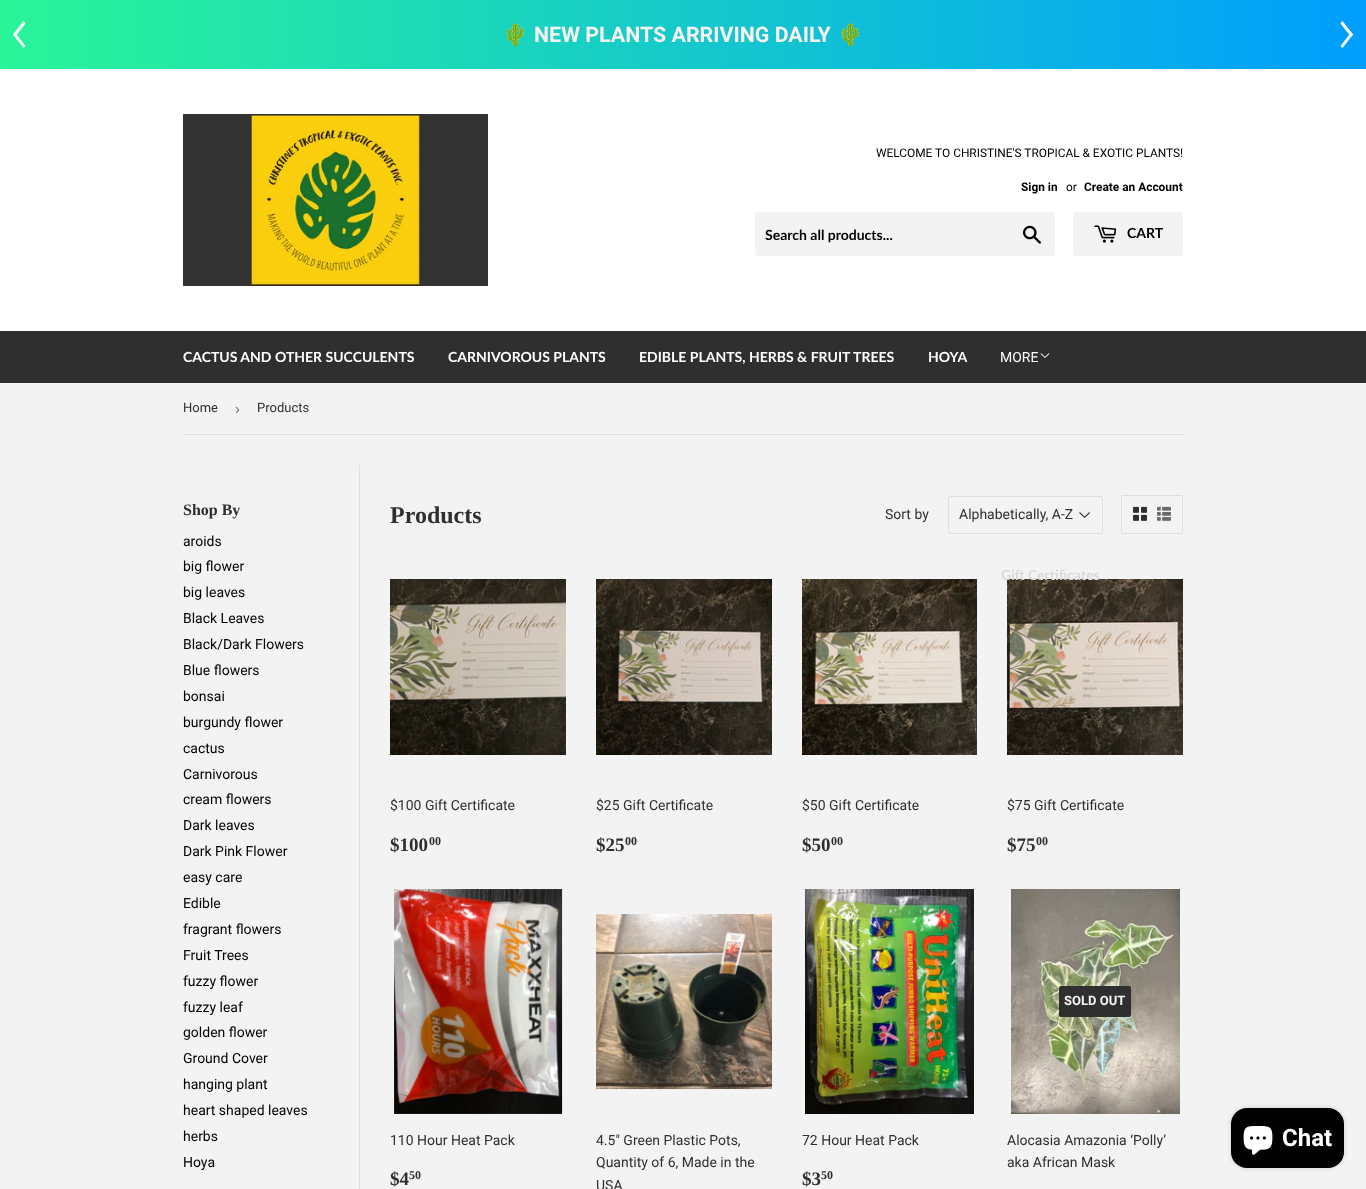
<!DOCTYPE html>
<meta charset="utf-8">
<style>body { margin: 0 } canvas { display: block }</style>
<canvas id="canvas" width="1366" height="1189"></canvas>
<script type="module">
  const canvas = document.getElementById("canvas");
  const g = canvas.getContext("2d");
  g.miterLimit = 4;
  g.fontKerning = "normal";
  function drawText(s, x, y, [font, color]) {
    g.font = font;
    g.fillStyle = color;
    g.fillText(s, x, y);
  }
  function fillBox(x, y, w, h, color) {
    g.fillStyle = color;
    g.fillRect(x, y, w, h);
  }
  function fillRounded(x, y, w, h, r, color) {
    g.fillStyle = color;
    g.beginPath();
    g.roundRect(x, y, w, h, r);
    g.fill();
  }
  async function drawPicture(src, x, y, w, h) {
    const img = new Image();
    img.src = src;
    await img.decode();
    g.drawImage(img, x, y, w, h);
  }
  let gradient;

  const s1 = ["bold 21.4px Noto Color Emoji", "#F6F2F2"];
  const s2 = ["bold 21.4px Roboto", "#F6F2F2"];
  const s3 = ["11.9px Roboto", "#000000"];
  const s4 = ["bold 11.9px Roboto", "#000000"];
  const s5 = ["bold 14px Lato", "#000000"];
  const s6 = ["bold 14px Lato", "#FFFFFF"];
  const s7 = ["14px Roboto", "#FFFFFF"];
  const s8 = ["bold 14px Lato", "#DCDAD9"];
  const s9 = ["13px Roboto", "#2F2F2F"];
  const s10 = ["15px Liberation Sans", "#767676"];
  const s11 = ["bold 16px Liberation Serif", "#2F2F2F"];
  const s12 = ["14px Roboto", "#000000"];
  const s13 = ["bold 24px Liberation Serif", "#2F2F2F"];
  const s14 = ["14px Roboto", "#2F2F2F"];
  const s15 = ["bold 19px Liberation Serif", "#2F2F2F"];
  const s16 = ["bold 12px Liberation Serif", "#2F2F2F"];
  const s17 = ["bold 13px Roboto", "#F6F2F2"];
  const s18 = ["bold 24px Roboto", "#FFFFFF"];

  fillBox(0, 0, 1366, 1189, "#F3F3F3");
  gradient = g.createLinearGradient(0, 35, 1366, 34);
  gradient.addColorStop(0, "#2AF598");
  gradient.addColorStop(1, "#009EFD");
  g.fillStyle = gradient;
  g.fillRect(0, 0, 1366, 69);
  g.fillStyle = "#FFFFFF";
  g.beginPath();
  g.moveTo(13, 34.5);
  g.lineTo(23.5, 21);
  g.lineTo(25.5, 23.5);
  g.lineTo(15, 37);
  g.closePath();
  g.fill();
  g.beginPath();
  g.moveTo(13, 34.5);
  g.lineTo(15, 32.5);
  g.lineTo(25.5, 46);
  g.lineTo(23.5, 48);
  g.closePath();
  g.fill();
  drawText("🌵", 502, 42, s1);
  drawText("NEW PLANTS ARRIVING DAILY", 534, 42, s2);
  drawText("🌵", 837, 42, s1);
  g.fillStyle = "#FFFFFF";
  g.beginPath();
  g.moveTo(1353, 34.5);
  g.lineTo(1342.5, 48);
  g.lineTo(1340.5, 46);
  g.lineTo(1351, 32.5);
  g.closePath();
  g.fill();
  g.beginPath();
  g.moveTo(1353, 34.5);
  g.lineTo(1351, 37);
  g.lineTo(1340.5, 23.5);
  g.lineTo(1342.5, 21);
  g.closePath();
  g.fill();
  fillBox(0, 69, 1366, 262, "#FFFFFF");
  await drawPicture("pic1.png", 183, 114, 305, 172);
  drawText("WELCOME TO CHRISTINE'S TROPICAL & EXOTIC PLANTS!", 876, 157, s3);
  drawText("Sign in", 1021, 191, s4);
  drawText("or", 1066, 191, s3);
  drawText("Create an Account", 1084, 191, s4);
  fillRounded(755, 212, 300, 44, 2, "#F3F3F3");
  drawText("Search all products...", 765, 240, s5);
  await drawPicture("pic2.png", 1023, 225, 18, 19);
  fillRounded(1073, 212, 110, 44, 2, "#F3F3F3");
  await drawPicture("pic3.png", 1094, 225, 23, 18);
  drawText("CART", 1127, 238, s5);
  fillBox(0, 331, 1366, 52, "#2F2F2F");
  drawText("CACTUS AND OTHER SUCCULENTS", 183, 362, s6);
  drawText("CARNIVOROUS PLANTS", 448, 362, s6);
  drawText("EDIBLE PLANTS, HERBS & FRUIT TREES", 639, 362, s6);
  drawText("HOYA", 928, 362, s6);
  drawText("MORE", 1000, 362, s7);
  await drawPicture("pic4.png", 1040, 353, 10, 5);
  await drawPicture("pic11.png", 1007, 579, 176, 176);
  drawText("Gift Certificates", 1001, 580, s8);
  fillBox(183, 434, 1000, 1, "#DEDEDE");
  drawText("Home", 183, 412, s9);
  drawText("›", 235, 414, s10);
  drawText("Products", 257, 412, s9);
  drawText("Shop By", 183, 515, s11);
  drawText("aroids", 183, 546, s12);
  drawText("big flower", 183, 571, s12);
  drawText("big leaves", 183, 597, s12);
  drawText("Black Leaves", 183, 623, s12);
  drawText("Black/Dark Flowers", 183, 649, s12);
  drawText("Blue flowers", 183, 675, s12);
  drawText("bonsai", 183, 701, s12);
  drawText("burgundy flower", 183, 727, s12);
  drawText("cactus", 183, 753, s12);
  drawText("Carnivorous", 183, 779, s12);
  drawText("cream flowers", 183, 804, s12);
  drawText("Dark leaves", 183, 830, s12);
  drawText("Dark Pink Flower", 183, 856, s12);
  drawText("easy care", 183, 882, s12);
  drawText("Edible", 183, 908, s12);
  drawText("fragrant flowers", 183, 934, s12);
  drawText("Fruit Trees", 183, 960, s12);
  drawText("fuzzy flower", 183, 986, s12);
  drawText("fuzzy leaf", 183, 1012, s12);
  drawText("golden flower", 183, 1037, s12);
  drawText("Ground Cover", 183, 1063, s12);
  drawText("hanging plant", 183, 1089, s12);
  drawText("heart shaped leaves", 183, 1115, s12);
  drawText("herbs", 183, 1141, s12);
  drawText("Hoya", 183, 1167, s12);
  fillBox(359, 465, 1, 724, "#DEDEDE");
  drawText("Products", 390, 523, s13);
  drawText("Sort by", 885, 519, s14);
  await drawPicture("pic5.png", 1079, 512, 11, 6);
  g.beginPath();
  g.roundRect(948.5, 496.5, 154, 37, 1.5);
  g.strokeStyle = "#DEDEDE";
  g.stroke();
  drawText("Alphabetically, A-Z", 959, 519, s14);
  g.beginPath();
  g.roundRect(1121.5, 495.5, 61, 38, 1.5);
  g.stroke();
  await drawPicture("pic6.png", 1133, 506, 14, 15);
  await drawPicture("pic7.png", 1157, 506, 14, 15);
  await drawPicture("pic8.png", 390, 579, 176, 176);
  drawText("$100 Gift Certificate", 390, 810, s14);
  drawText("$100", 390, 851, s15);
  drawText("00", 429, 845, s16);
  await drawPicture("pic9.png", 596, 579, 176, 176);
  drawText("$25 Gift Certificate", 596, 810, s14);
  drawText("$25", 596, 851, s15);
  drawText("00", 625, 845, s16);
  await drawPicture("pic10.png", 802, 579, 175, 176);
  drawText("$50 Gift Certificate", 802, 810, s14);
  drawText("$50", 802, 851, s15);
  drawText("00", 831, 845, s16);
  drawText("$75 Gift Certificate", 1007, 810, s14);
  drawText("$75", 1007, 851, s15);
  drawText("00", 1036, 845, s16);
  await drawPicture("pic12.png", 394, 889, 169, 225);
  drawText("110 Hour Heat Pack", 390, 1145, s14);
  drawText("$4", 390, 1185, s15);
  drawText("50", 409, 1179, s16);
  await drawPicture("pic13.png", 596, 914, 176, 176);
  drawText("4.5\" Green Plastic Pots,", 596, 1145, s14);
  drawText("Quantity of 6, Made in the", 596, 1167, s14);
  drawText("USA", 596, 1190, s14);
  await drawPicture("pic14.png", 805, 889, 169, 225);
  drawText("72 Hour Heat Pack", 802, 1145, s14);
  drawText("$3", 802, 1185, s15);
  drawText("50", 821, 1179, s16);
  await drawPicture("pic15.png", 1011, 889, 169, 225);
  fillRounded(1059, 986, 72, 31, 2, "#2F2F2F");
  drawText("SOLD OUT", 1064, 1005, s17);
  drawText("Alocasia Amazonia ‘Polly’", 1007, 1145, s14);
  drawText("aka African Mask", 1007, 1167, s14);
  g.fillStyle = "rgba(0, 0, 0, 0.15)";
  g.filter = "blur(2.5px)";
  g.beginPath();
  g.roundRect(1231, 1108, 113, 60, 16);
  g.fill();
  g.filter = "none";
  fillRounded(1231, 1108, 113, 60, 16, "#000000");
  await drawPicture("pic16.png", 1243, 1126, 30, 29);
  drawText("Chat", 1282, 1146, s18);
</script>
